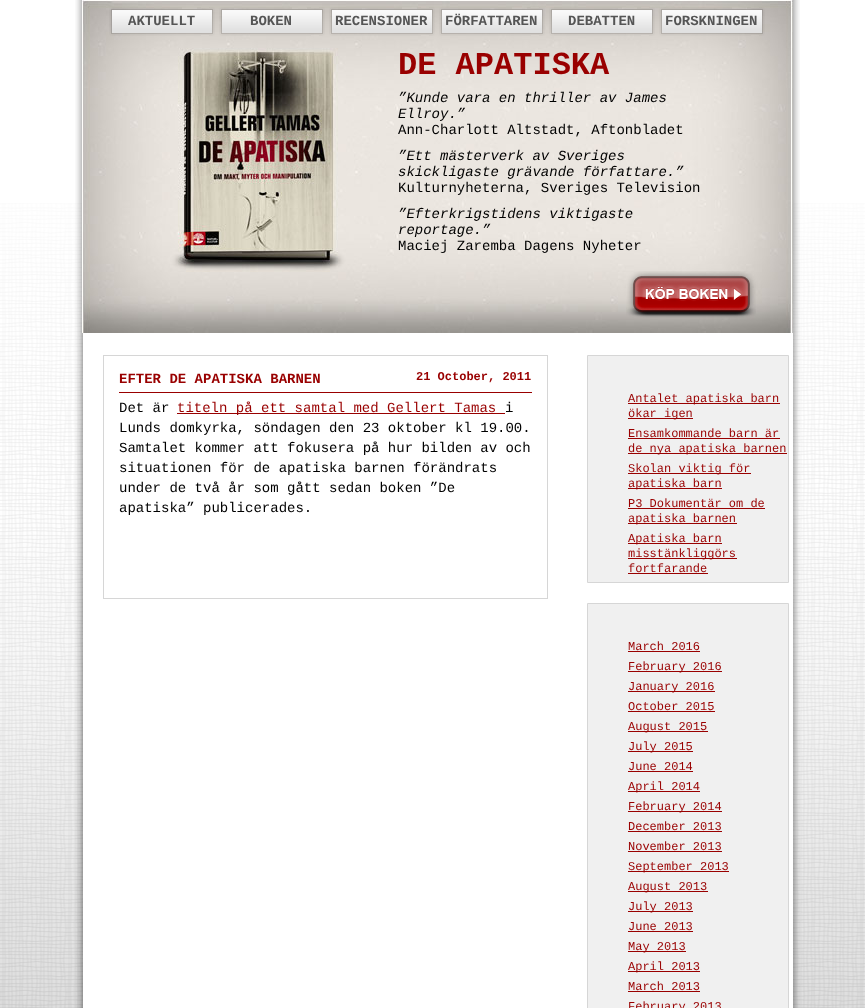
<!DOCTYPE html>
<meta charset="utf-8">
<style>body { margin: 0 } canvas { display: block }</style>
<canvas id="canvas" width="865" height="1008"></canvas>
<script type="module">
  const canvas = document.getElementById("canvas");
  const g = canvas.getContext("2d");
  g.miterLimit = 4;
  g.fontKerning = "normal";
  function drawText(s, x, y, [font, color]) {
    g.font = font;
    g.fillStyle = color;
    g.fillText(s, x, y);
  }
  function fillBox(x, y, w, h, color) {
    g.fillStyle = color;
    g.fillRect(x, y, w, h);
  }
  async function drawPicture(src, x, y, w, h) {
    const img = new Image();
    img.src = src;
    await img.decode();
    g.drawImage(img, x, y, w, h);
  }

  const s1 = ["bold 14px Liberation Mono", "#555555"];
  const s2 = ["bold 32px Liberation Mono", "#990000"];
  const s3 = ["italic 14px Liberation Mono", "#000000"];
  const s4 = ["14px Liberation Mono", "#000000"];
  const s5 = ["bold 14px Liberation Mono", "#990000"];
  const s6 = ["bold 12px Liberation Mono", "#990000"];
  const s7 = ["14px Liberation Mono", "#990000"];
  const s8 = ["12px Liberation Mono", "#990000"];

  fillBox(0, 0, 865, 1008, "#FFFFFF");
  await drawPicture("pic1.png", 0, 203, 865, 805);
  await drawPicture("pic2.png", 75, 0, 725, 1008);
  await drawPicture("pic3.png", 82, 0, 711, 333);
  await drawPicture("pic4.png", 109, 7, 106, 29);
  drawText("AKTUELLT", 128, 25, s1);
  await drawPicture("pic5.png", 219, 7, 106, 29);
  drawText("BOKEN", 250, 25, s1);
  await drawPicture("pic6.png", 329, 7, 106, 29);
  drawText("RECENSIONER", 335, 25, s1);
  await drawPicture("pic7.png", 439, 7, 106, 29);
  drawText("FÖRFATTAREN", 445, 25, s1);
  await drawPicture("pic8.png", 549, 7, 106, 29);
  drawText("DEBATTEN", 568, 25, s1);
  await drawPicture("pic9.png", 659, 7, 106, 29);
  drawText("FORSKNINGEN", 665, 25, s1);
  drawText("DE APATISKA", 398, 74, s2);
  drawText("”Kunde vara en thriller av James", 398, 102, s3);
  drawText("Ellroy.”", 398, 118, s3);
  drawText("Ann-Charlott Altstadt, Aftonbladet", 398, 134, s4);
  drawText("”Ett mästerverk av Sveriges", 398, 160, s3);
  drawText("skickligaste grävande författare.”", 398, 176, s3);
  drawText("Kulturnyheterna, Sveriges Television", 398, 192, s4);
  drawText("”Efterkrigstidens viktigaste", 398, 218, s3);
  drawText("reportage.”", 398, 234, s3);
  drawText("Maciej Zaremba Dagens Nyheter", 398, 250, s4);
  await drawPicture("pic10.png", 626, 271, 130, 47);
  g.strokeStyle = "#D6D6D6";
  g.strokeRect(103.5, 355.5, 444, 243);
  fillBox(119, 392, 413, 1, "#990000");
  drawText("EFTER DE APATISKA BARNEN", 119, 383, s5);
  drawText("21 October, 2011", 416, 380, s6);
  drawText("Det är", 119, 412, s4);
  fillBox(177, 413, 328, 1, "#990000");
  drawText("titeln på ett samtal med Gellert Tamas", 177, 412, s7);
  drawText("i", 505, 412, s4);
  drawText("Lunds domkyrka, söndagen den 23 oktober kl 19.00.", 119, 432, s4);
  drawText("Samtalet kommer att fokusera på hur bilden av och", 119, 452, s4);
  drawText("situationen för de apatiska barnen förändrats", 119, 472, s4);
  drawText("under de två år som gått sedan boken ”De", 119, 492, s4);
  drawText("apatiska” publicerades.", 119, 512, s4);
  g.fillStyle = "#F0F0F0";
  g.beginPath();
  g.rect(587.5, 355.5, 201, 227);
  g.fill();
  g.stroke();
  fillBox(628, 403, 152, 1, "#990000");
  drawText("Antalet apatiska barn", 628, 402, s8);
  fillBox(628, 418, 65, 1, "#990000");
  drawText("ökar igen", 628, 417, s8);
  drawText("Ensamkommande barn är", 628, 437, s8);
  fillBox(628, 438, 152, 1, "#990000");
  fillBox(628, 453, 159, 1, "#990000");
  drawText("de nya apatiska barnen", 628, 452, s8);
  fillBox(628, 473, 123, 1, "#990000");
  drawText("Skolan viktig för", 628, 472, s8);
  fillBox(628, 488, 94, 1, "#990000");
  drawText("apatiska barn", 628, 487, s8);
  drawText("P3 Dokumentär om de", 628, 507, s8);
  fillBox(628, 508, 137, 1, "#990000");
  fillBox(628, 523, 109, 1, "#990000");
  drawText("apatiska barnen", 628, 522, s8);
  fillBox(628, 543, 94, 1, "#990000");
  drawText("Apatiska barn", 628, 542, s8);
  fillBox(628, 558, 109, 1, "#990000");
  drawText("misstänkliggörs", 628, 557, s8);
  drawText("fortfarande", 628, 572, s8);
  fillBox(628, 573, 80, 1, "#990000");
  g.fillStyle = "#F0F0F0";
  g.beginPath();
  g.rect(587.5, 603.5, 201, 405);
  g.fill();
  g.stroke();
  drawText("March 2016", 628, 650, s8);
  fillBox(628, 651, 72, 1, "#990000");
  fillBox(628, 671, 94, 1, "#990000");
  drawText("February 2016", 628, 670, s8);
  fillBox(628, 691, 87, 1, "#990000");
  drawText("January 2016", 628, 690, s8);
  drawText("October 2015", 628, 710, s8);
  fillBox(628, 711, 87, 1, "#990000");
  fillBox(628, 731, 80, 1, "#990000");
  drawText("August 2015", 628, 730, s8);
  fillBox(628, 751, 65, 1, "#990000");
  drawText("July 2015", 628, 750, s8);
  drawText("June 2014", 628, 770, s8);
  fillBox(628, 771, 65, 1, "#990000");
  fillBox(628, 791, 72, 1, "#990000");
  drawText("April 2014", 628, 790, s8);
  fillBox(628, 811, 94, 1, "#990000");
  drawText("February 2014", 628, 810, s8);
  drawText("December 2013", 628, 830, s8);
  fillBox(628, 831, 94, 1, "#990000");
  drawText("November 2013", 628, 850, s8);
  fillBox(628, 851, 94, 1, "#990000");
  fillBox(628, 871, 101, 1, "#990000");
  drawText("September 2013", 628, 870, s8);
  fillBox(628, 891, 80, 1, "#990000");
  drawText("August 2013", 628, 890, s8);
  fillBox(628, 911, 65, 1, "#990000");
  drawText("July 2013", 628, 910, s8);
  drawText("June 2013", 628, 930, s8);
  fillBox(628, 931, 65, 1, "#990000");
  fillBox(628, 951, 58, 1, "#990000");
  drawText("May 2013", 628, 950, s8);
  fillBox(628, 971, 72, 1, "#990000");
  drawText("April 2013", 628, 970, s8);
  drawText("March 2013", 628, 990, s8);
  fillBox(628, 991, 72, 1, "#990000");
  drawText("February 2013", 628, 1010, s8);
</script>
